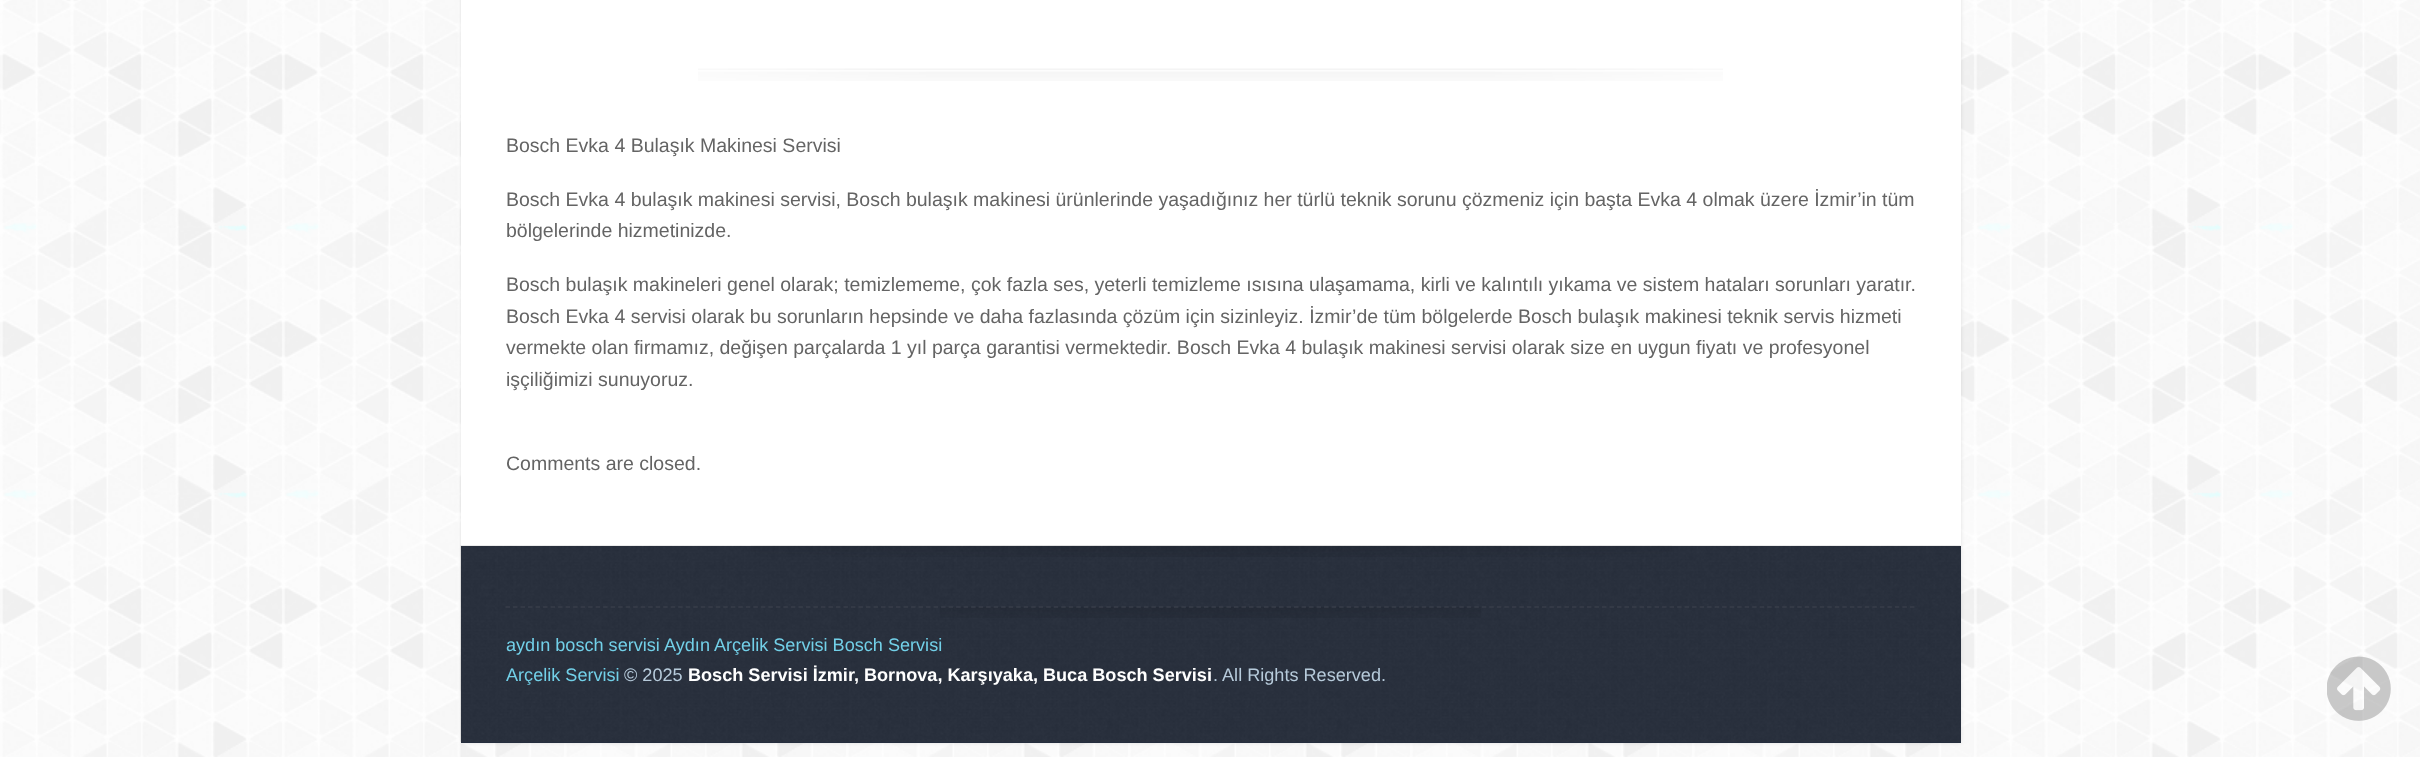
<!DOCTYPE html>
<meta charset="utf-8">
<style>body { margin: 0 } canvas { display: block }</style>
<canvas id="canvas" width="2420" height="757"></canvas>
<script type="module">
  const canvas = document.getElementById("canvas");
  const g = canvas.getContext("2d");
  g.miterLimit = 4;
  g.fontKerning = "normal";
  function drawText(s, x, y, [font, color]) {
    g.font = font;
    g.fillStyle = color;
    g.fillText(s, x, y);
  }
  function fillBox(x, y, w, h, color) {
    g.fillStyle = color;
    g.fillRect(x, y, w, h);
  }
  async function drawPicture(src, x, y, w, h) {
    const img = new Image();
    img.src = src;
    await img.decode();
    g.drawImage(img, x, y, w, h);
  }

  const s1 = ["19.5px Liberation Sans", "#646464"];
  const s2 = ["18.1px Liberation Sans", "#72D0E8"];
  const s3 = ["18.1px Liberation Sans", "#B7CBDB"];
  const s4 = ["bold 18.1px Liberation Sans", "#FFFFFF"];

  fillBox(0, 0, 2420, 757, "#FFFFFF");
  await drawPicture("pic1.png", 0, 0, 2420, 757);
  g.fillStyle = "rgba(0, 0, 0, 0.1)";
  g.filter = "blur(2px)";
  g.beginPath();
  g.rect(461, -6, 1500, 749);
  g.fill();
  g.filter = "none";
  fillBox(461, 0, 1500, 546, "#FFFFFF");
  await drawPicture("pic2.png", 698, 68, 1025, 13);
  drawText("Bosch Evka 4 Bulaşık Makinesi Servisi", 506, 152, s1);
  drawText("Bosch Evka 4 bulaşık makinesi servisi, Bosch bulaşık makinesi ürünlerinde yaşadığınız her türlü teknik sorunu çözmeniz için başta Evka 4 olmak üzere İzmir’in tüm", 506, 206, s1);
  drawText("bölgelerinde hizmetinizde.", 506, 237, s1);
  drawText("Bosch bulaşık makineleri genel olarak; temizlememe, çok fazla ses, yeterli temizleme ısısına ulaşamama, kirli ve kalıntılı yıkama ve sistem hataları sorunları yaratır.", 506, 291, s1);
  drawText("Bosch Evka 4 servisi olarak bu sorunların hepsinde ve daha fazlasında çözüm için sizinleyiz. İzmir’de tüm bölgelerde Bosch bulaşık makinesi teknik servis hizmeti", 506, 323, s1);
  drawText("vermekte olan firmamız, değişen parçalarda 1 yıl parça garantisi vermektedir. Bosch Evka 4 bulaşık makinesi servisi olarak size en uygun fiyatı ve profesyonel", 506, 354, s1);
  drawText("işçiliğimizi sunuyoruz.", 506, 386, s1);
  drawText("Comments are closed.", 506, 470, s1);
  fillBox(461, 546, 1500, 197, "#252E3E");
  await drawPicture("pic3.png", 460, 545, 1501, 197);
  await drawPicture("pic4.png", 751, 545, 921, 12);
  await drawPicture("pic5.png", 940, 607, 541, 11);
  g.beginPath();
  g.moveTo(505.5, 607);
  g.lineTo(1915.5, 607);
  g.strokeStyle = "#383E4A";
  g.lineWidth = 1.5;
  g.setLineDash([4.5, 3.01]);
  g.stroke();
  drawText("aydın bosch servisi", 506, 651, s2);
  drawText("Aydın Arçelik Servisi Bosch Servisi", 664, 651, s2);
  drawText("Arçelik Servisi", 506, 681, s2);
  drawText("© 2025", 624, 681, s3);
  drawText("Bosch Servisi İzmir, Bornova, Karşıyaka, Buca Bosch Servisi", 688, 681, s4);
  drawText(". All Rights Reserved.", 1213, 681, s3);
  await drawPicture("pic6.png", 2327, 656, 64, 65);
</script>
